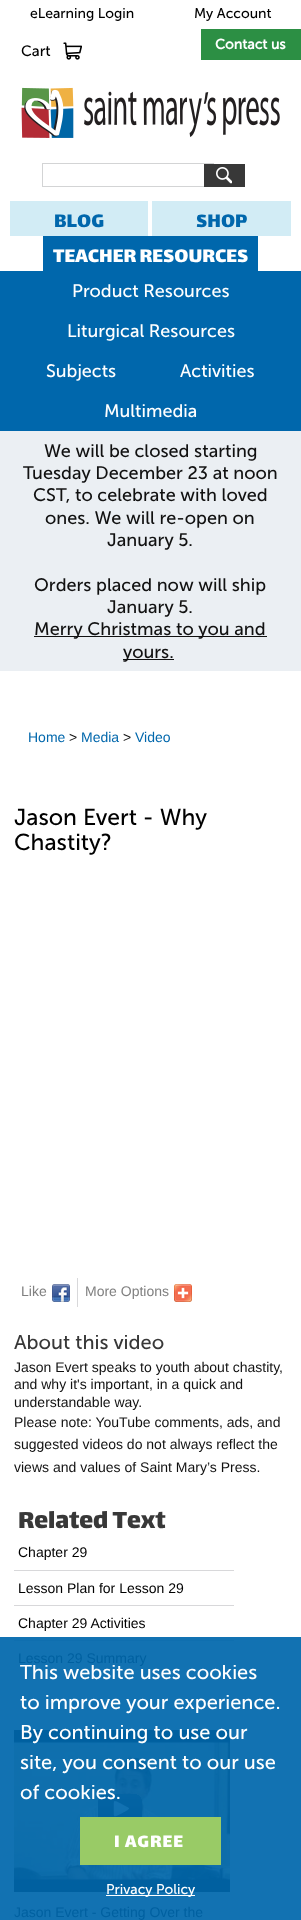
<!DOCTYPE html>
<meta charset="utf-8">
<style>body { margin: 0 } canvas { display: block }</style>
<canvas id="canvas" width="301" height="1920"></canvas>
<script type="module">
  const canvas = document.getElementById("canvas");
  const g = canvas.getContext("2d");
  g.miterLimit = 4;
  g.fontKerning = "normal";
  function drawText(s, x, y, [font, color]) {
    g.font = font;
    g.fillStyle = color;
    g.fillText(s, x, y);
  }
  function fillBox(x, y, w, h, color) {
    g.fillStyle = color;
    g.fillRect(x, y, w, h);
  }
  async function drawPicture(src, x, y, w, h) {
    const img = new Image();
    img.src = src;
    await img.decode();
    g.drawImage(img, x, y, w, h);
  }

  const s1 = ["14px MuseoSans", "#000000"];
  const s2 = ["15px MuseoSans", "#000000"];
  const s3 = ["bold 14px MuseoSans", "#FFFFFF"];
  const s4 = ["22px Lalezar", "#0067AC"];
  const s5 = ["22px Lalezar", "#FFFFFF"];
  const s6 = ["18px MuseoSans", "#FFFFFF"];
  const s7 = ["18.1px MuseoSans", "#111111"];
  const s8 = ["14px Liberation Sans", "#0067AC"];
  const s9 = ["14px Liberation Sans", "#111111"];
  const s10 = ["23px MuseoSans", "#000000"];
  const s11 = ["14px Liberation Sans", "#808080"];
  const s12 = ["20px MuseoSans", "#383838"];
  const s13 = ["28px Lalezar", "#383838"];
  const s14 = ["14px Liberation Sans", "#000000"];
  const s15 = ["14px Liberation Sans", "#0060A0"];
  const s16 = ["20px MuseoSans", "#FFFFFF"];
  const s17 = ["20px Lalezar", "#FFFFFF"];
  const s18 = ["14px MuseoSans", "#FFFFFF"];

  fillBox(0, 0, 301, 1920, "#FFFFFF");
  fillBox(0, 1637, 301, 283, "#1272B2");
  drawText("eLearning Login", 30, 18, s1);
  drawText("My Account", 194, 18, s1);
  drawText("Cart", 21, 56, s2);
  await drawPicture("pic1.png", 63, 42, 19, 18);
  fillBox(201, 29, 100, 31, "#2C8F44");
  drawText("Contact us", 215, 49, s3);
  await drawPicture("pic2.png", 21, 87, 259, 51);
  fillBox(42, 163, 172, 1, "#D3D4D5");
  fillBox(42, 186, 162, 1, "#D3D4D5");
  fillBox(42, 163, 1, 24, "#D3D4D5");
  fillBox(204, 164, 41, 23, "#383838");
  await drawPicture("pic3.png", 216, 167, 16, 17);
  fillBox(10, 201, 138, 35, "#D2ECF5");
  drawText("BLOG", 54, 227, s4);
  fillBox(152, 201, 139, 35, "#D2ECF5");
  drawText("SHOP", 196, 227, s4);
  fillBox(43, 236, 215, 35, "#0067AC");
  drawText("TEACHER RESOURCES", 53, 262, s5);
  fillBox(0, 271, 301, 160, "#0067AC");
  drawText("Product Resources", 72, 297, s6);
  drawText("Liturgical Resources", 67, 337, s6);
  drawText("Subjects", 46, 377, s6);
  drawText("Activities", 180, 377, s6);
  drawText("Multimedia", 104, 417, s6);
  fillBox(0, 431, 301, 240, "#EBEFF3");
  drawText("We will be closed starting", 44, 457, s7);
  drawText("Tuesday December 23 at noon", 23, 479, s7);
  drawText("CST, to celebrate with loved", 33, 501, s7);
  drawText("ones. We will re-open on", 45, 524, s7);
  drawText("January 5.", 107, 546, s7);
  drawText("Orders placed now will ship", 34, 591, s7);
  drawText("January 5.", 107, 613, s7);
  fillBox(34, 636, 233, 1, "#111111");
  drawText("Merry Christmas to you and", 34, 635, s7);
  fillBox(123, 659, 51, 1, "#111111");
  drawText("yours.", 123, 658, s7);
  drawText("Home", 28, 742, s8);
  drawText(">", 69, 742, s9);
  drawText("Media", 81, 742, s8);
  drawText(">", 123, 742, s9);
  drawText("Video", 135, 742, s8);
  drawText("Jason Evert - Why", 14, 825, s10);
  drawText("Chastity?", 14, 850, s10);
  fillBox(77, 1278, 1, 29, "#D8D8DA");
  drawText("Like", 21, 1296, s11);
  await drawPicture("pic4.png", 52, 1284, 18, 18);
  drawText("More Options", 85, 1296, s11);
  await drawPicture("pic5.png", 174, 1284, 18, 18);
  drawText("About this video", 14, 1349, s12);
  drawText("Jason Evert speaks to youth about chastity,", 14, 1372, s9);
  drawText("and why it's important, in a quick and", 14, 1389, s9);
  drawText("understandable way.", 14, 1407, s9);
  drawText("Please note: YouTube comments, ads, and", 14, 1427, s9);
  drawText("suggested videos do not always reflect the", 14, 1449, s9);
  drawText("views and values of Saint Mary’s Press.", 14, 1472, s9);
  drawText("Related Text", 18, 1528, s13);
  fillBox(14, 1570, 220, 1, "#D8D8DA");
  drawText("Chapter 29", 18, 1557, s14);
  fillBox(14, 1605, 220, 1, "#D8D8DA");
  drawText("Lesson Plan for Lesson 29", 18, 1593, s14);
  fillBox(14, 1640, 220, 1, "#0F6FAF");
  drawText("Chapter 29 Activities", 18, 1628, s14);
  drawText("Lesson 29 Summary", 18, 1663, s15);
  await drawPicture("pic6.png", 14, 1730, 216, 162);
  await drawPicture("pic7.png", 98, 1794, 44, 23);
  drawText("Jason Evert - Getting Over the", 14, 1917, s15);
  drawText("This website uses cookies", 20, 1679, s16);
  drawText("to improve your experience.", 20, 1709, s16);
  drawText("By continuing to use our", 20, 1739, s16);
  drawText("site, you consent to our use", 20, 1769, s16);
  drawText("of cookies.", 20, 1799, s16);
  fillBox(80, 1817, 141, 48, "#99CB66");
  g.letterSpacing = "1px";
  drawText("I AGREE", 114, 1847, s17);
  fillBox(106, 1895, 89, 1, "#FFFFFF");
  g.letterSpacing = "0px";
  drawText("Privacy Policy", 106, 1894, s18);
</script>
